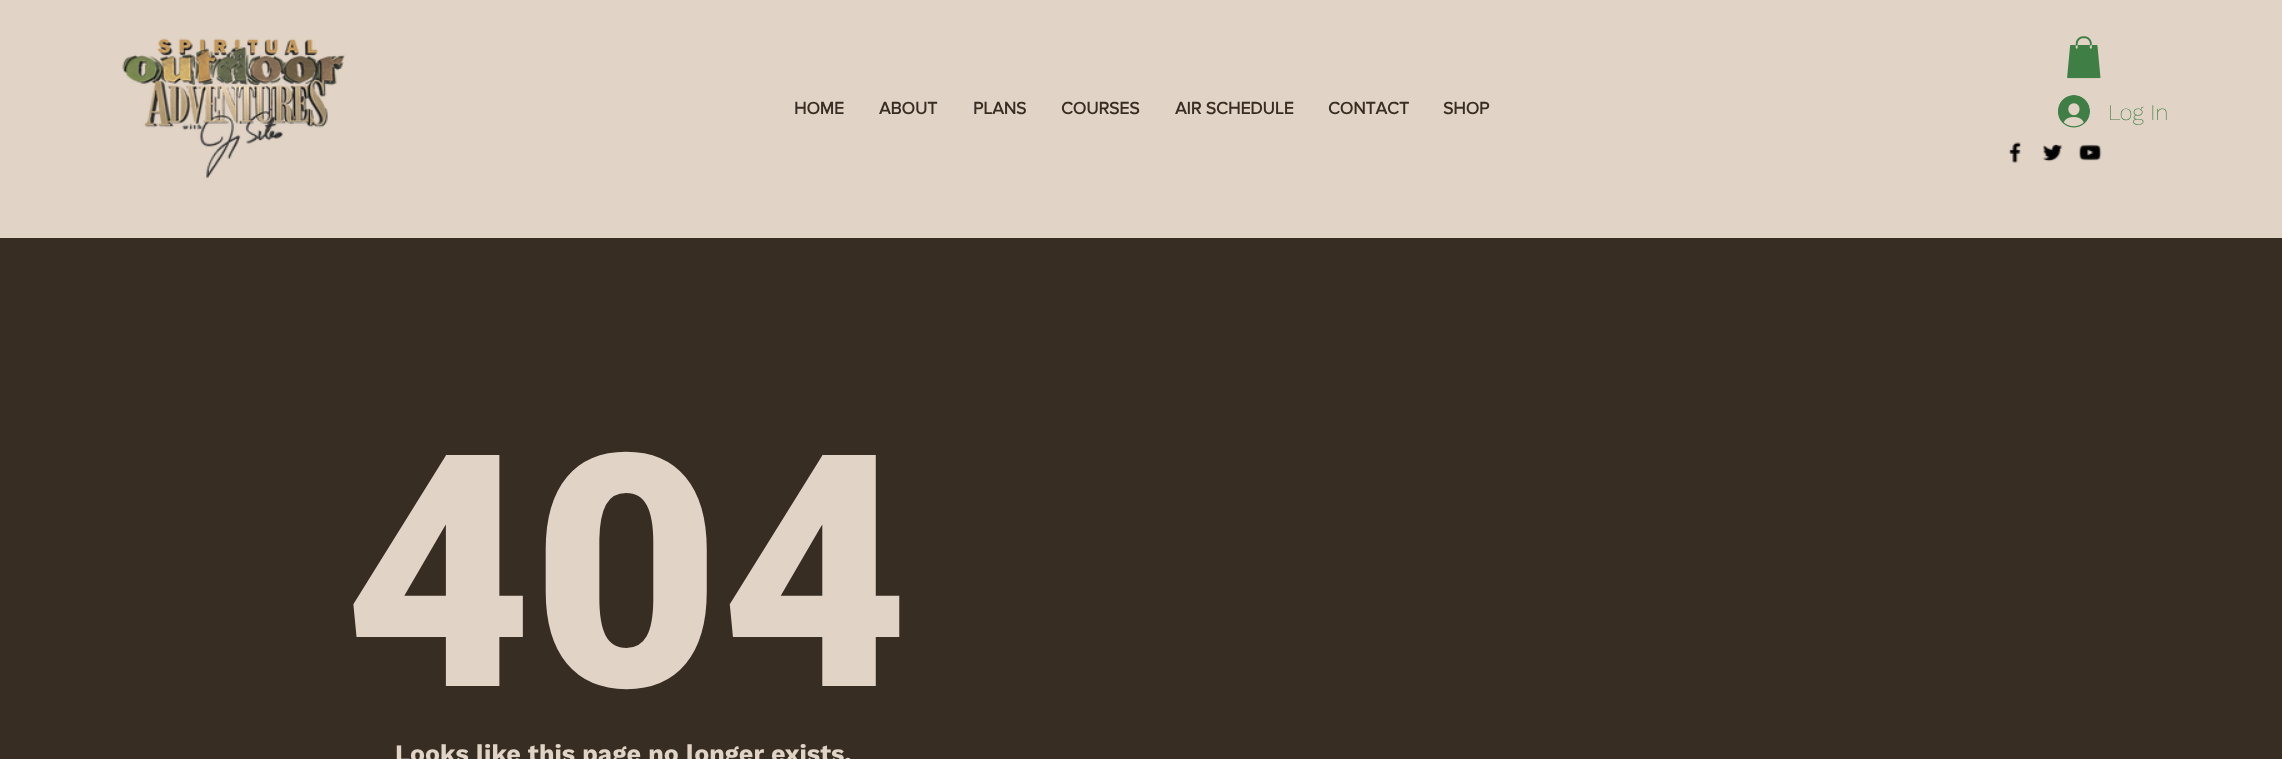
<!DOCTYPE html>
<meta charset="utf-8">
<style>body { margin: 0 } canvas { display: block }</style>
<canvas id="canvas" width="2282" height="759"></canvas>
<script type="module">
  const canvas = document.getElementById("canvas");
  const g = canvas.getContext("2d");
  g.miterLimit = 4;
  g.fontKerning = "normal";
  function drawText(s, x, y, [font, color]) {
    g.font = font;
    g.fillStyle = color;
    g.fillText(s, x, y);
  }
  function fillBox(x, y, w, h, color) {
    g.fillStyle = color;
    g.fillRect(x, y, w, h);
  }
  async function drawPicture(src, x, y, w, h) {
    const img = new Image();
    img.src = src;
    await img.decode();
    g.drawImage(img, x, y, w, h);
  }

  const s1 = ["bold 17.5px 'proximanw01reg'", "#372D23"];
  const s2 = ["200 22.5px Work Sans", "#3F7E44"];
  const s3 = ["900 325px Roboto", "#E1D4C6"];
  const s4 = ["bold 25px Work Sans", "#E1D4C6"];

  fillBox(0, 0, 2282, 759, "#372D23");
  fillBox(0, 0, 2282, 238, "#E1D4C6");
  await drawPicture("pic1.png", 122, 38, 223, 141);
  drawText("HOME", 794, 114, s1);
  drawText("ABOUT", 879, 114, s1);
  drawText("PLANS", 973, 114, s1);
  drawText("COURSES", 1061, 114, s1);
  drawText("AIR SCHEDULE", 1175, 114, s1);
  drawText("CONTACT", 1328, 114, s1);
  drawText("SHOP", 1443, 114, s1);
  await drawPicture("pic2.png", 2067, 36, 34, 43);
  await drawPicture("pic3.png", 2058, 95, 32, 33);
  drawText("Log In", 2108, 120, s2);
  await drawPicture("pic4.png", 2009, 142, 12, 21);
  await drawPicture("pic5.png", 2042, 144, 21, 18);
  await drawPicture("pic6.png", 2078, 144, 24, 17);
  drawText("404", 344, 686, s3);
  drawText("Looks like this page no longer exists.", 395, 762, s4);
</script>
